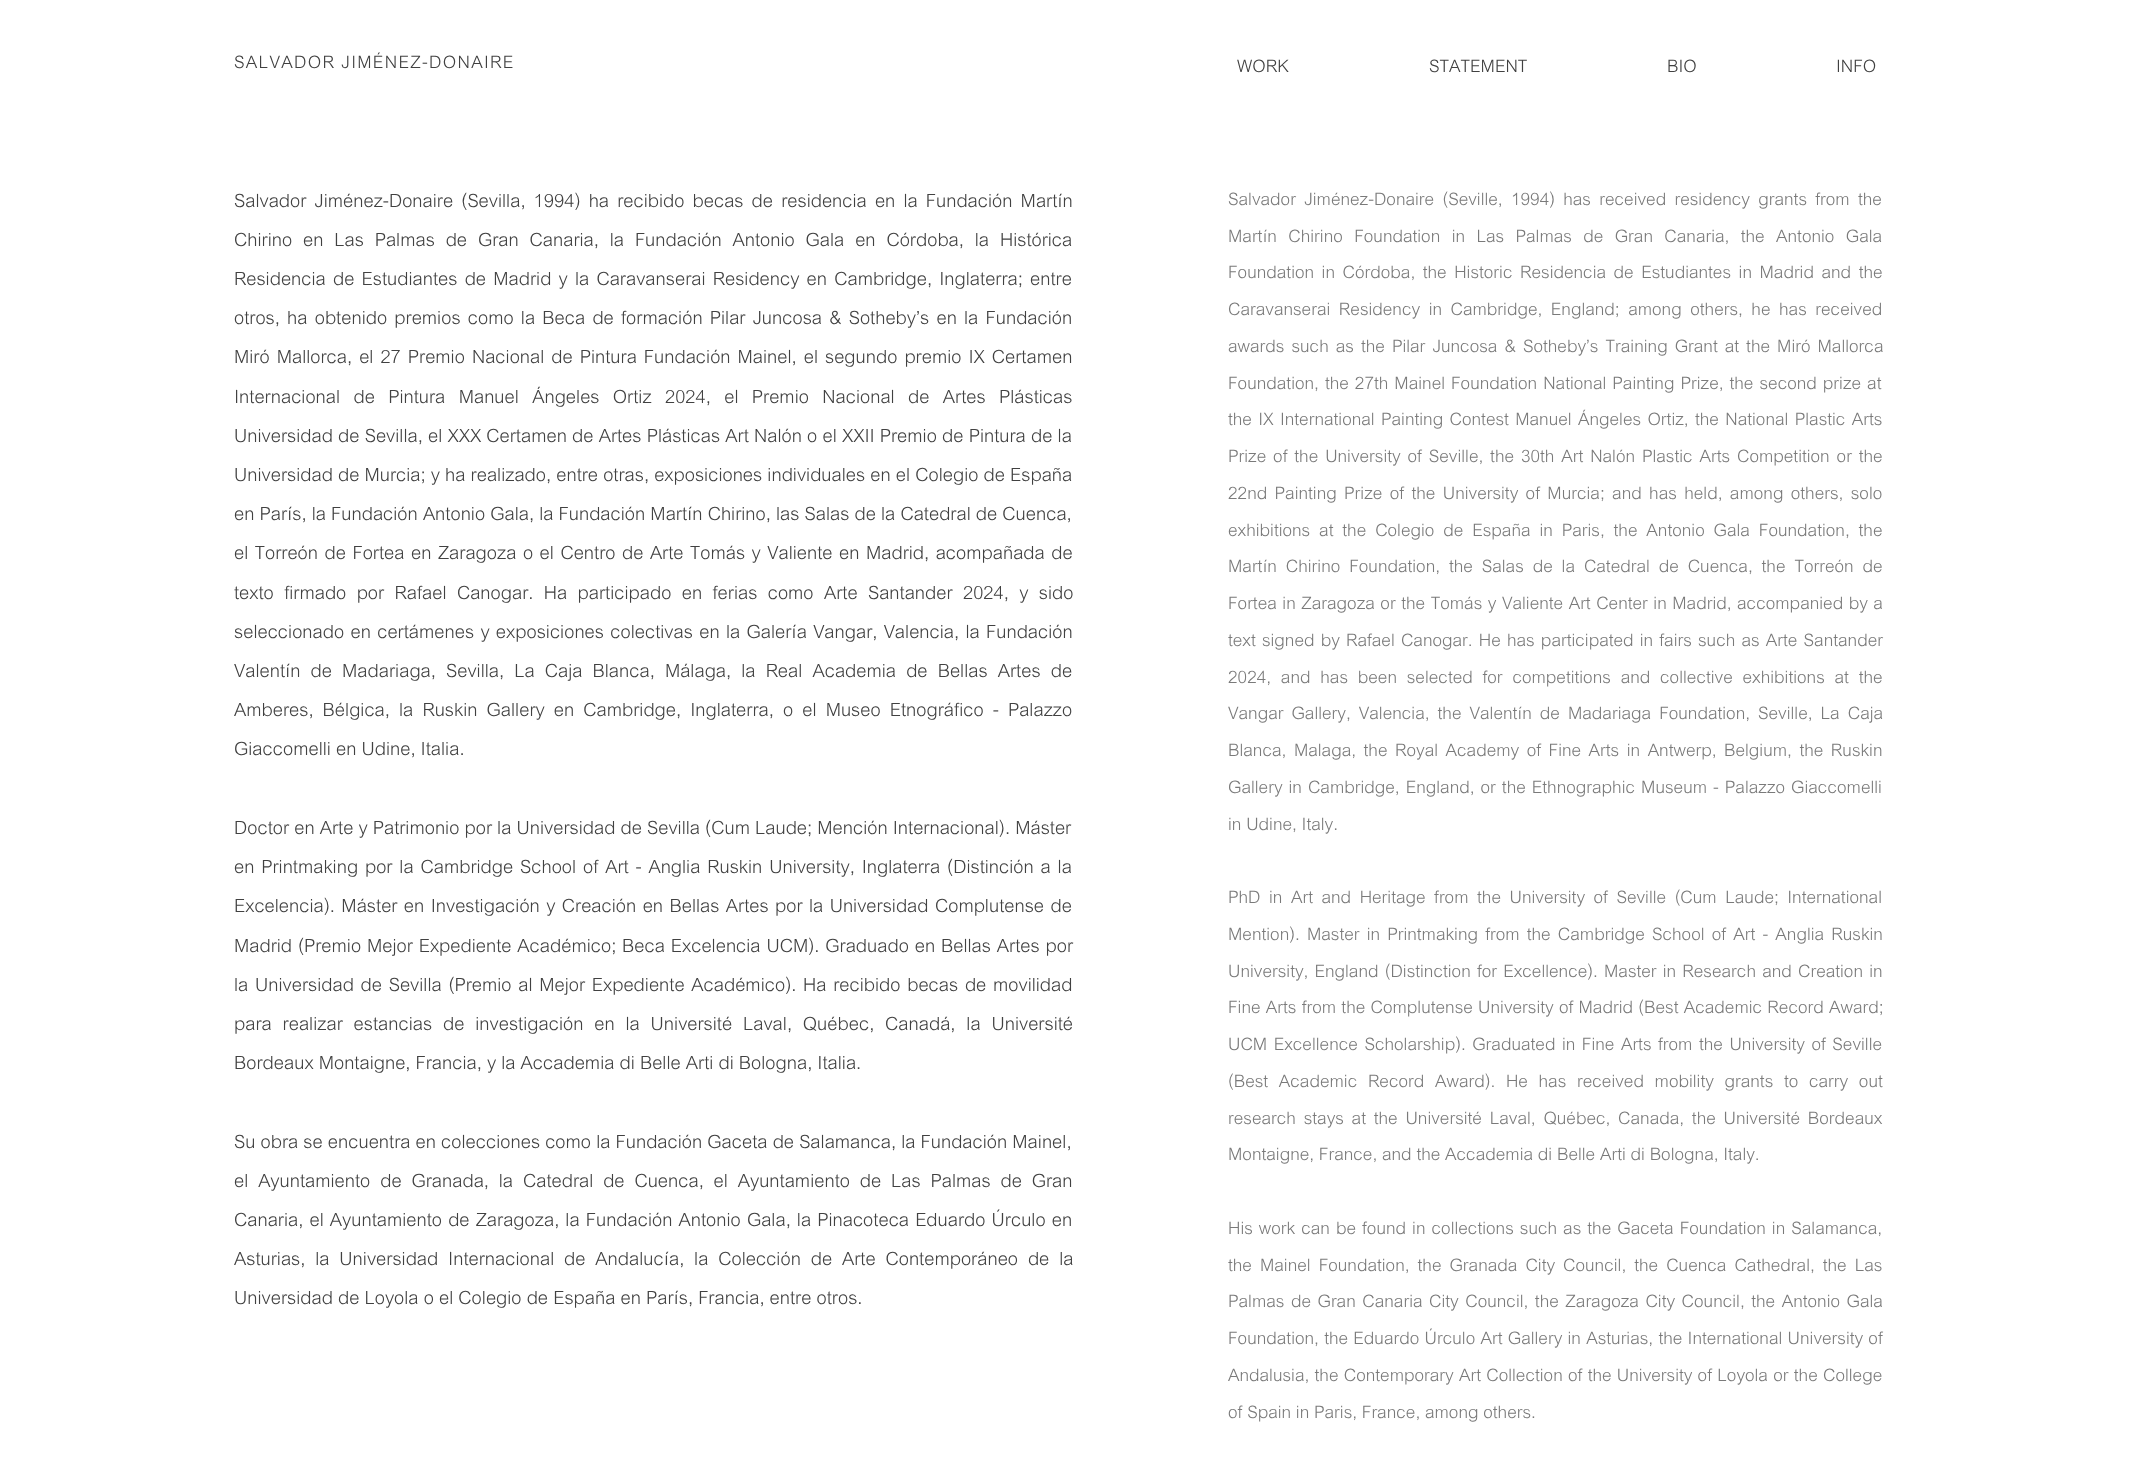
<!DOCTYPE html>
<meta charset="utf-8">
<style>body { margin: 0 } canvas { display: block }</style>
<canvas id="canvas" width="2146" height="1476"></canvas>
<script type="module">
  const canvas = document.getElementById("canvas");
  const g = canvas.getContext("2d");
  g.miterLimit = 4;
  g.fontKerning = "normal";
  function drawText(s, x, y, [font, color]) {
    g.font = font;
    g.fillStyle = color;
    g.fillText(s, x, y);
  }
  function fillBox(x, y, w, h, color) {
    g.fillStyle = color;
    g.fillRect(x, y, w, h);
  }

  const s1 = ["26.25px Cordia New", "#414141"];
  const s2 = ["28px Cordia New", "#414141"];
  const s3 = ["26.25px Cordia New", "#7A7A7A"];

  fillBox(0, 0, 2146, 1476, "#FFFFFF");
  g.letterSpacing = "1.3px";
  drawText("SALVADOR JIMÉNEZ-DONAIRE", 234, 68, s1);
  g.letterSpacing = "0px";
  drawText("WORK", 1237, 72, s1);
  drawText("STATEMENT", 1429, 72, s1);
  drawText("BIO", 1667, 72, s1);
  drawText("INFO", 1836, 72, s1);
  g.wordSpacing = "3px";
  drawText("Salvador Jiménez-Donaire (Sevilla, 1994) ha recibido becas de residencia en la Fundación Martín", 234, 207, s2);
  g.wordSpacing = "5.75px";
  drawText("Chirino en Las Palmas de Gran Canaria, la Fundación Antonio Gala en Córdoba, la Histórica", 234, 246, s2);
  g.wordSpacing = "2.1px";
  drawText("Residencia de Estudiantes de Madrid y la Caravanserai Residency en Cambridge, Inglaterra; entre", 234, 285, s2);
  drawText("otros, ha obtenido premios como la Beca de formación Pilar Juncosa & Sotheby’s en la Fundación", 234, 324, s2);
  g.wordSpacing = "1.9px";
  drawText("Miró Mallorca, el 27 Premio Nacional de Pintura Fundación Mainel, el segundo premio IX Certamen", 234, 363, s2);
  g.wordSpacing = "8.25px";
  drawText("Internacional de Pintura Manuel Ángeles Ortiz 2024, el Premio Nacional de Artes Plásticas", 234, 403, s2);
  g.wordSpacing = "0.1px";
  drawText("Universidad de Sevilla, el XXX Certamen de Artes Plásticas Art Nalón o el XXII Premio de Pintura de la", 234, 442, s2);
  g.wordSpacing = "0px";
  drawText("Universidad de Murcia; y ha realizado, entre otras, exposiciones individuales en el Colegio de España", 234, 481, s2);
  drawText("en París, la Fundación Antonio Gala, la Fundación Martín Chirino, las Salas de la Catedral de Cuenca,", 234, 520, s2);
  g.wordSpacing = "1.4px";
  drawText("el Torreón de Fortea en Zaragoza o el Centro de Arte Tomás y Valiente en Madrid, acompañada de", 234, 559, s2);
  g.wordSpacing = "5.25px";
  drawText("texto firmado por Rafael Canogar. Ha participado en ferias como Arte Santander 2024, y sido", 234, 599, s2);
  g.wordSpacing = "1.2px";
  drawText("seleccionado en certámenes y exposiciones colectivas en la Galería Vangar, Valencia, la Fundación", 234, 638, s2);
  g.wordSpacing = "5px";
  drawText("Valentín de Madariaga, Sevilla, La Caja Blanca, Málaga, la Real Academia de Bellas Artes de", 234, 677, s2);
  g.wordSpacing = "4px";
  drawText("Amberes, Bélgica, la Ruskin Gallery en Cambridge, Inglaterra, o el Museo Etnográfico - Palazzo", 234, 716, s2);
  g.wordSpacing = "0px";
  drawText("Giaccomelli en Udine, Italia.", 234, 755, s2);
  drawText("Doctor en Arte y Patrimonio por la Universidad de Sevilla (Cum Laude; Mención Internacional). Máster", 234, 834, s2);
  g.wordSpacing = "1.75px";
  drawText("en Printmaking por la Cambridge School of Art - Anglia Ruskin University, Inglaterra (Distinción a la", 234, 873, s2);
  g.wordSpacing = "1.3px";
  drawText("Excelencia). Máster en Investigación y Creación en Bellas Artes por la Universidad Complutense de", 234, 912, s2);
  g.wordSpacing = "0.75px";
  drawText("Madrid (Premio Mejor Expediente Académico; Beca Excelencia UCM). Graduado en Bellas Artes por", 234, 952, s2);
  g.wordSpacing = "1.6px";
  drawText("la Universidad de Sevilla (Premio al Mejor Expediente Académico). Ha recibido becas de movilidad", 234, 991, s2);
  g.wordSpacing = "5.75px";
  drawText("para realizar estancias de investigación en la Université Laval, Québec, Canadá, la Université", 234, 1030, s2);
  g.wordSpacing = "0px";
  drawText("Bordeaux Montaigne, Francia, y la Accademia di Belle Arti di Bologna, Italia.", 234, 1069, s2);
  drawText("Su obra se encuentra en colecciones como la Fundación Gaceta de Salamanca, la Fundación Mainel,", 234, 1148, s2);
  g.wordSpacing = "4.75px";
  drawText("el Ayuntamiento de Granada, la Catedral de Cuenca, el Ayuntamiento de Las Palmas de Gran", 234, 1187, s2);
  g.wordSpacing = "1px";
  drawText("Canaria, el Ayuntamiento de Zaragoza, la Fundación Antonio Gala, la Pinacoteca Eduardo Úrculo en", 234, 1226, s2);
  g.wordSpacing = "4.75px";
  drawText("Asturias, la Universidad Internacional de Andalucía, la Colección de Arte Contemporáneo de la", 234, 1265, s2);
  g.wordSpacing = "0px";
  drawText("Universidad de Loyola o el Colegio de España en París, Francia, entre otros.", 234, 1304, s2);
  g.wordSpacing = "3.5px";
  drawText("Salvador Jiménez-Donaire (Seville, 1994) has received residency grants from the", 1228, 205, s3);
  g.wordSpacing = "6.6px";
  drawText("Martín Chirino Foundation in Las Palmas de Gran Canaria, the Antonio Gala", 1228, 242, s3);
  g.wordSpacing = "2.75px";
  drawText("Foundation in Córdoba, the Historic Residencia de Estudiantes in Madrid and the", 1228, 278, s3);
  g.wordSpacing = "3.75px";
  drawText("Caravanserai Residency in Cambridge, England; among others, he has received", 1228, 315, s3);
  g.wordSpacing = "2.25px";
  drawText("awards such as the Pilar Juncosa & Sotheby’s Training Grant at the Miró Mallorca", 1228, 352, s3);
  g.wordSpacing = "1.25px";
  drawText("Foundation, the 27th Mainel Foundation National Painting Prize, the second prize at", 1228, 389, s3);
  g.wordSpacing = "1.6px";
  drawText("the IX International Painting Contest Manuel Ángeles Ortiz, the National Plastic Arts", 1228, 425, s3);
  g.wordSpacing = "2.1px";
  drawText("Prize of the University of Seville, the 30th Art Nalón Plastic Arts Competition or the", 1228, 462, s3);
  g.wordSpacing = "2.6px";
  drawText("22nd Painting Prize of the University of Murcia; and has held, among others, solo", 1228, 499, s3);
  g.wordSpacing = "4.1px";
  drawText("exhibitions at the Colegio de España in Paris, the Antonio Gala Foundation, the", 1228, 536, s3);
  drawText("Martín Chirino Foundation, the Salas de la Catedral de Cuenca, the Torreón de", 1228, 572, s3);
  g.wordSpacing = "0.75px";
  drawText("Fortea in Zaragoza or the Tomás y Valiente Art Center in Madrid, accompanied by a", 1228, 609, s3);
  g.wordSpacing = "1.4px";
  drawText("text signed by Rafael Canogar. He has participated in fairs such as Arte Santander", 1228, 646, s3);
  g.wordSpacing = "5px";
  drawText("2024, and has been selected for competitions and collective exhibitions at the", 1228, 683, s3);
  g.wordSpacing = "3.25px";
  drawText("Vangar Gallery, Valencia, the Valentín de Madariaga Foundation, Seville, La Caja", 1228, 719, s3);
  g.wordSpacing = "2.75px";
  drawText("Blanca, Malaga, the Royal Academy of Fine Arts in Antwerp, Belgium, the Ruskin", 1228, 756, s3);
  g.wordSpacing = "1.25px";
  drawText("Gallery in Cambridge, England, or the Ethnographic Museum - Palazzo Giaccomelli", 1228, 793, s3);
  g.wordSpacing = "0px";
  drawText("in Udine, Italy.", 1228, 830, s3);
  g.wordSpacing = "3.75px";
  drawText("PhD in Art and Heritage from the University of Seville (Cum Laude; International", 1228, 903, s3);
  g.wordSpacing = "2.4px";
  drawText("Mention). Master in Printmaking from the Cambridge School of Art - Anglia Ruskin", 1228, 940, s3);
  g.wordSpacing = "1.4px";
  drawText("University, England (Distinction for Excellence). Master in Research and Creation in", 1228, 977, s3);
  g.wordSpacing = "0.5px";
  drawText("Fine Arts from the Complutense University of Madrid (Best Academic Record Award;", 1228, 1013, s3);
  g.wordSpacing = "1.75px";
  drawText("UCM Excellence Scholarship). Graduated in Fine Arts from the University of Seville", 1228, 1050, s3);
  g.wordSpacing = "5.9px";
  drawText("(Best Academic Record Award). He has received mobility grants to carry out", 1228, 1087, s3);
  g.wordSpacing = "3px";
  drawText("research stays at the Université Laval, Québec, Canada, the Université Bordeaux", 1228, 1124, s3);
  g.wordSpacing = "0px";
  drawText("Montaigne, France, and the Accademia di Belle Arti di Bologna, Italy.", 1228, 1160, s3);
  g.wordSpacing = "1.25px";
  drawText("His work can be found in collections such as the Gaceta Foundation in Salamanca,", 1228, 1234, s3);
  g.wordSpacing = "3.25px";
  drawText("the Mainel Foundation, the Granada City Council, the Cuenca Cathedral, the Las", 1228, 1271, s3);
  g.wordSpacing = "1.75px";
  drawText("Palmas de Gran Canaria City Council, the Zaragoza City Council, the Antonio Gala", 1228, 1307, s3);
  g.wordSpacing = "0.5px";
  drawText("Foundation, the Eduardo Úrculo Art Gallery in Asturias, the International University of", 1228, 1344, s3);
  drawText("Andalusia, the Contemporary Art Collection of the University of Loyola or the College", 1228, 1381, s3);
  g.wordSpacing = "0px";
  drawText("of Spain in Paris, France, among others.", 1228, 1418, s3);
</script>
